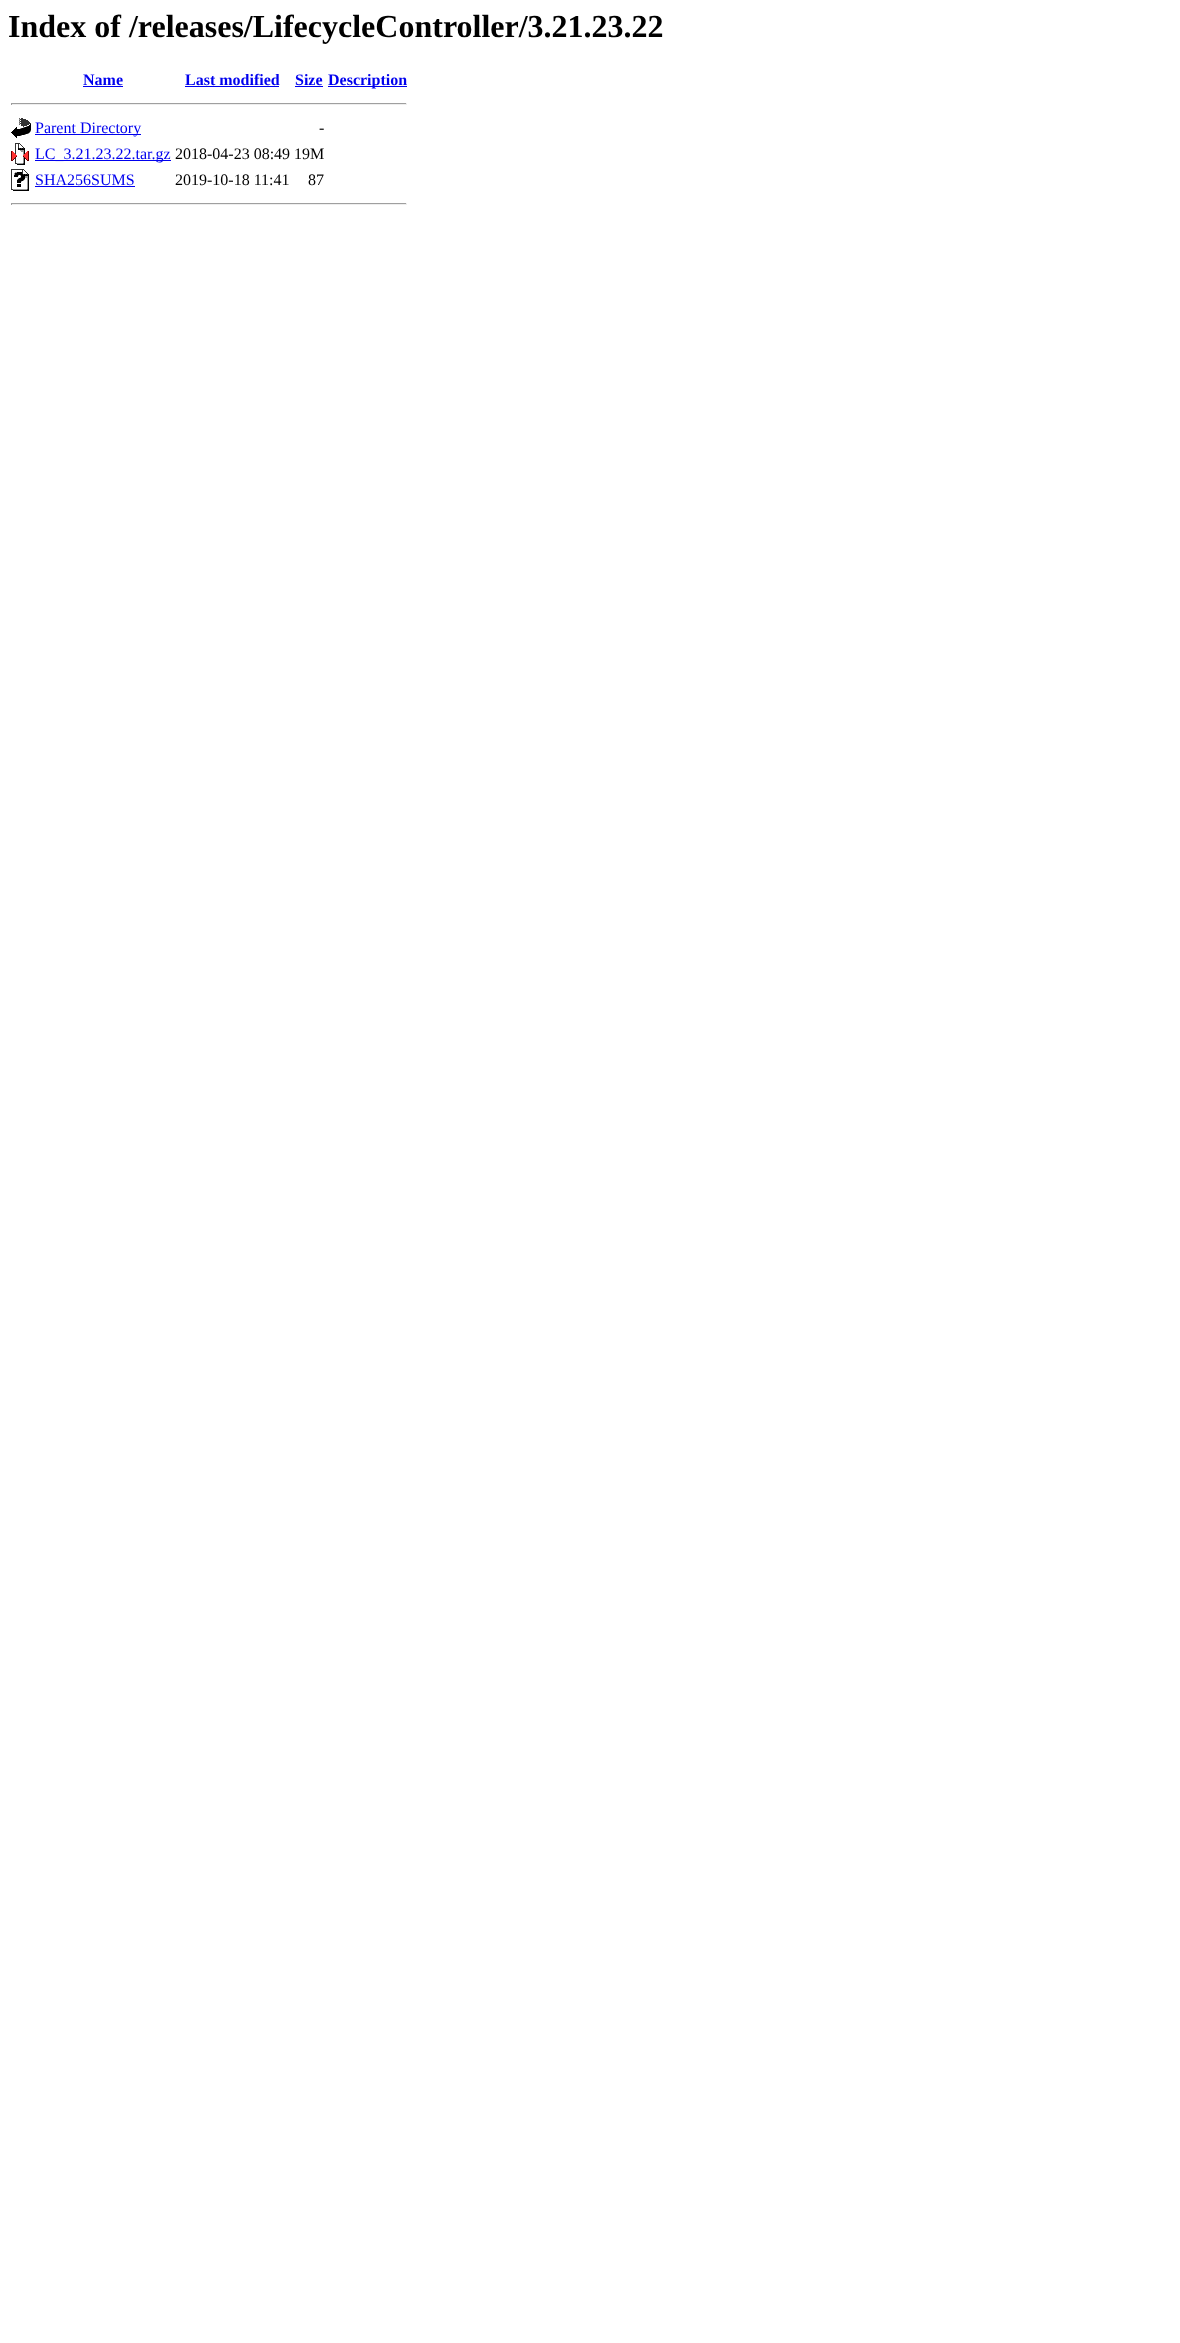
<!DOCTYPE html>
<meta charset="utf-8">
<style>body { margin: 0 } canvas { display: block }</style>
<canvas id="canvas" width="1180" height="2343"></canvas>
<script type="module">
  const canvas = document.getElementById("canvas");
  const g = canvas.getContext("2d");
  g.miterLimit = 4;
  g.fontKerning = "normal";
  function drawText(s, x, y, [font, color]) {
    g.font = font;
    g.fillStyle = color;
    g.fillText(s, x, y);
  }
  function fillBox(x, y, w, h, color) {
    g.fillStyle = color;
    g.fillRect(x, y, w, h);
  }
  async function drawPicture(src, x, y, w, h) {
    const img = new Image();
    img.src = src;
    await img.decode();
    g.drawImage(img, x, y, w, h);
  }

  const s1 = ["bold 32px Liberation Serif", "#000000"];
  const s2 = ["bold 16px Liberation Serif", "#0000EE"];
  const s3 = ["16px Liberation Serif", "#0000EE"];
  const s4 = ["16px Liberation Serif", "#000000"];

  fillBox(0, 0, 1180, 2343, "#FFFFFF");
  drawText("Index of /releases/LifecycleController/3.21.23.22", 8, 37, s1);
  drawText("Name", 83, 85, s2);
  fillBox(83, 86, 40, 1, "#0000EE");
  drawText("Last modified", 185, 85, s2);
  fillBox(185, 86, 94, 1, "#0000EE");
  drawText("Size", 295, 85, s2);
  fillBox(295, 86, 28, 1, "#0000EE");
  fillBox(328, 86, 79, 1, "#0000EE");
  drawText("Description", 328, 85, s2);
  fillBox(11, 103, 396, 1, "#9F9F9F");
  fillBox(406, 103, 1, 2, "#EEEEEE");
  fillBox(11, 104, 396, 1, "#EEEEEE");
  fillBox(11, 103, 1, 2, "#9F9F9F");
  await drawPicture("pic1.png", 11, 118, 20, 20);
  fillBox(35, 134, 106, 1, "#0000EE");
  drawText("Parent Directory", 35, 133, s3);
  drawText("-", 319, 133, s4);
  await drawPicture("pic2.png", 11, 143, 18, 22);
  fillBox(35, 160, 136, 1, "#0000EE");
  drawText("LC_3.21.23.22.tar.gz", 35, 159, s3);
  drawText("2018-04-23 08:49 19M", 175, 159, s4);
  await drawPicture("pic3.png", 11, 169, 18, 22);
  drawText("SHA256SUMS", 35, 185, s3);
  fillBox(35, 186, 100, 1, "#0000EE");
  drawText("2019-10-18 11:41", 175, 185, s4);
  drawText("87", 308, 185, s4);
  fillBox(11, 203, 396, 1, "#9F9F9F");
  fillBox(406, 203, 1, 2, "#EEEEEE");
  fillBox(11, 204, 396, 1, "#EEEEEE");
  fillBox(11, 203, 1, 2, "#9F9F9F");
</script>
